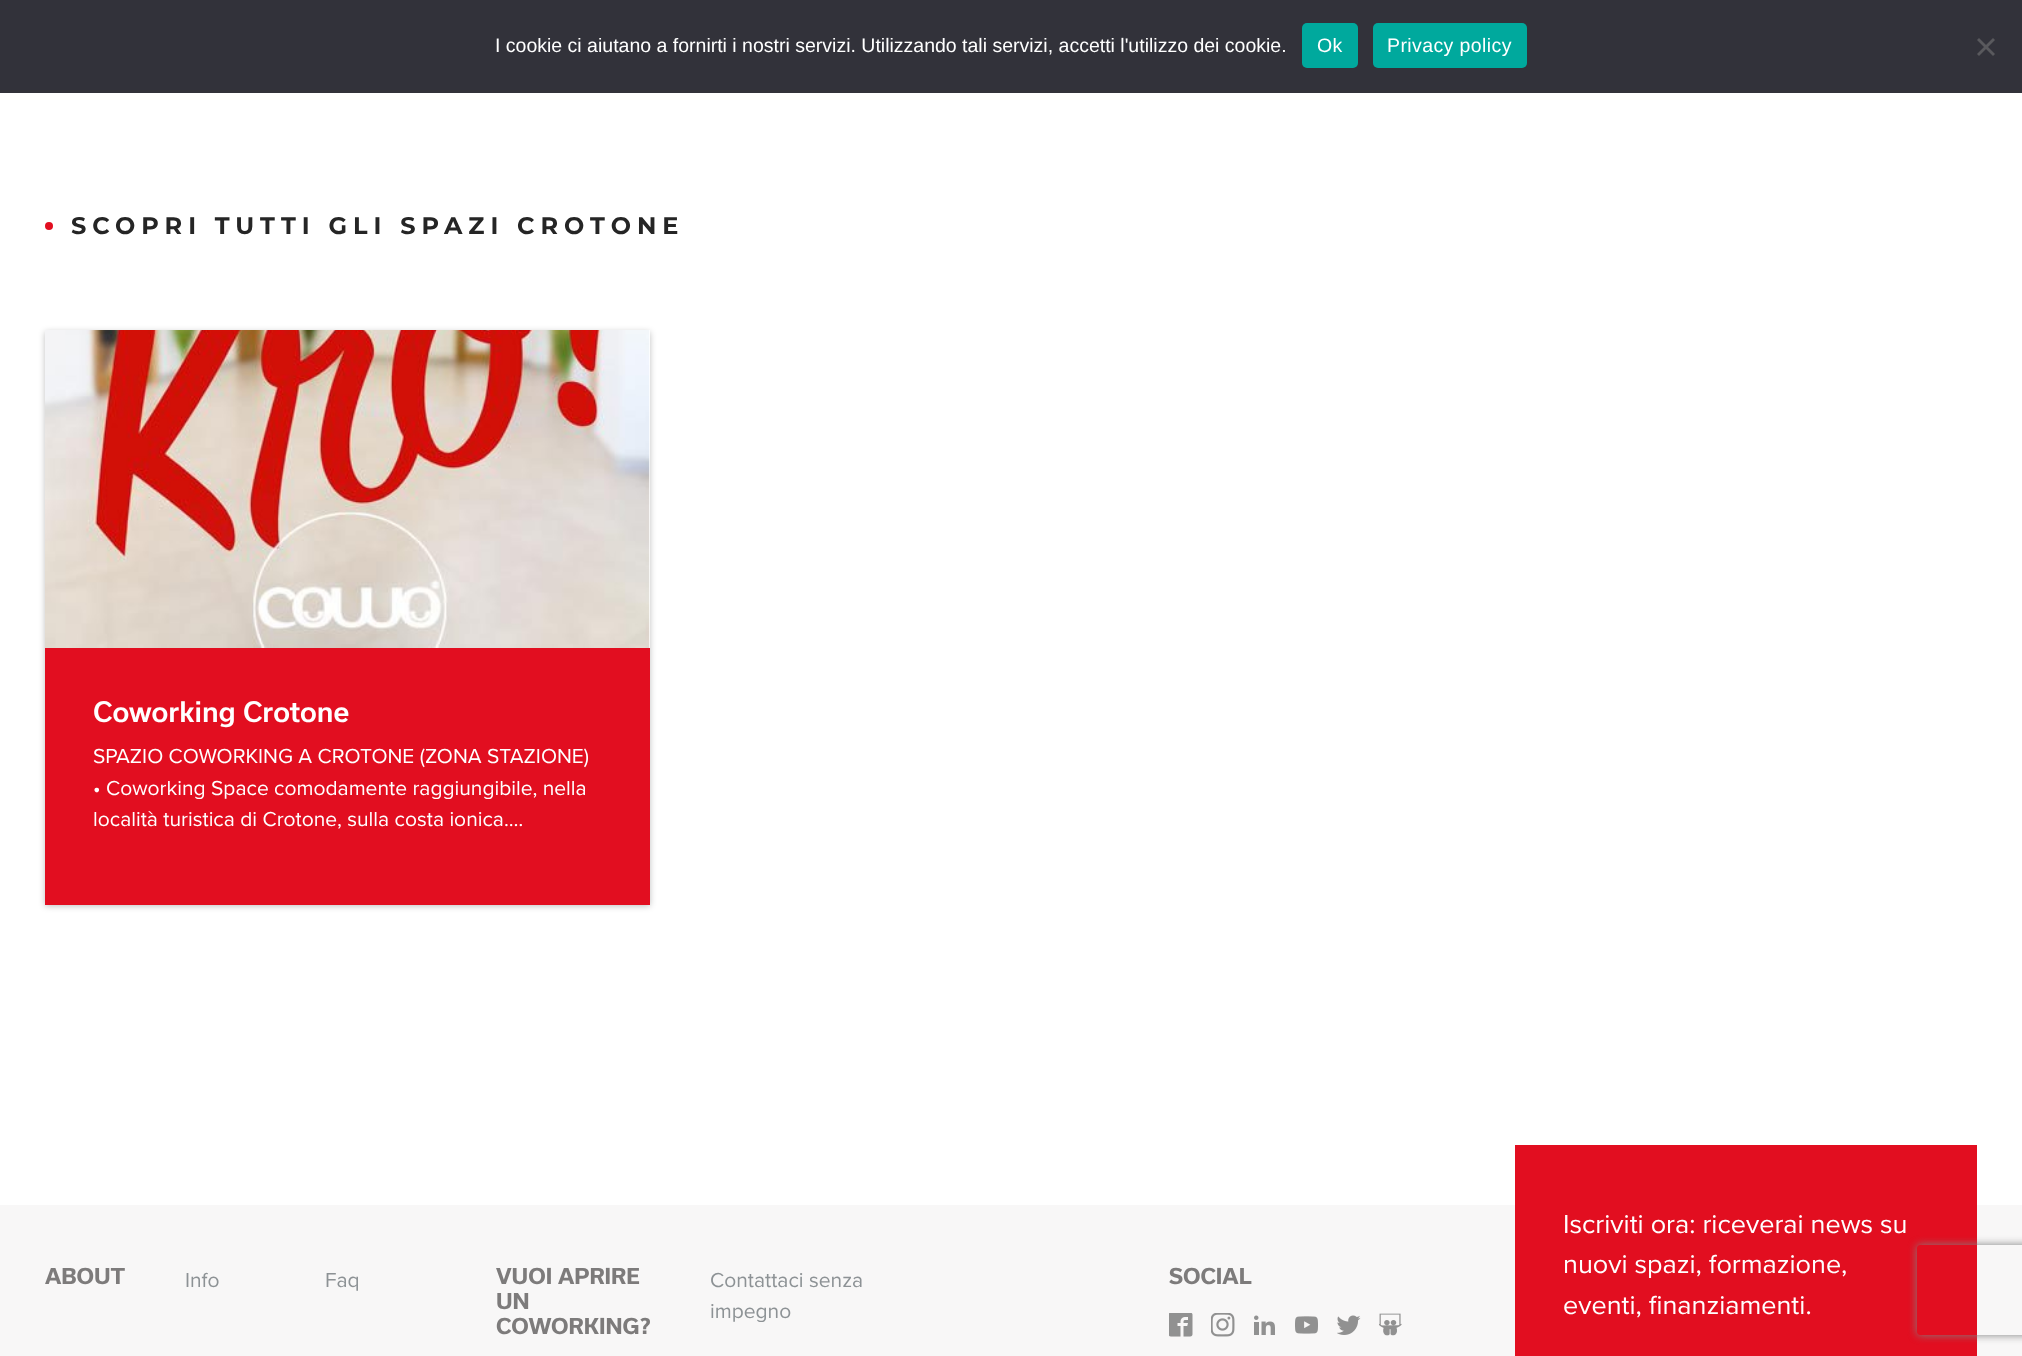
<!DOCTYPE html>
<meta charset="utf-8">
<style>body { margin: 0 } canvas { display: block }</style>
<canvas id="canvas" width="2022" height="1356"></canvas>
<script type="module">
  const canvas = document.getElementById("canvas");
  const g = canvas.getContext("2d");
  g.miterLimit = 4;
  g.fontKerning = "normal";
  function drawText(s, x, y, [font, color]) {
    g.font = font;
    g.fillStyle = color;
    g.fillText(s, x, y);
  }
  function fillBox(x, y, w, h, color) {
    g.fillStyle = color;
    g.fillRect(x, y, w, h);
  }
  function fillRounded(x, y, w, h, r, color) {
    g.fillStyle = color;
    g.beginPath();
    g.roundRect(x, y, w, h, r);
    g.fill();
  }
  async function drawPicture(src, x, y, w, h) {
    const img = new Image();
    img.src = src;
    await img.decode();
    g.drawImage(img, x, y, w, h);
  }

  const s1 = ["19.5px Liberation Sans", "#FFFFFF"];
  const s2 = ["100 24px Montserrat", "#252525"];
  const s3 = ["500 27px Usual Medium", "#FFFFFF"];
  const s4 = ["21px Proxima Nova", "#FFFFFF"];
  const s5 = ["bold 21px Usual", "#7D7B7B"];
  const s6 = ["21px Proxima Nova", "#8D9295"];
  const s7 = ["27px Proxima Nova", "#FFFFFF"];

  fillBox(0, 0, 2022, 1356, "#FFFFFF");
  fillBox(0, 0, 2022, 93, "#32323A");
  drawText("I cookie ci aiutano a fornirti i nostri servizi. Utilizzando tali servizi, accetti l'utilizzo dei cookie.", 495, 52, s1);
  fillRounded(1302, 23, 56, 45, 5, "#00A99D");
  g.letterSpacing = "0.4px";
  drawText("Ok", 1317, 52, s1);
  fillRounded(1373, 23, 154, 45, 5, "#00A99D");
  drawText("Privacy policy", 1387, 52, s1);
  g.fillStyle = "#59595D";
  g.beginPath();
  g.moveTo(1993, 38);
  g.lineTo(1995, 40);
  g.lineTo(1979, 56);
  g.lineTo(1977, 54);
  g.closePath();
  g.fill();
  g.beginPath();
  g.moveTo(1977, 40);
  g.lineTo(1979, 38);
  g.lineTo(1995, 54);
  g.lineTo(1993, 56);
  g.closePath();
  g.fill();
  g.fillStyle = "#E20E20";
  g.beginPath();
  g.arc(49, 226, 4, 0, Math.PI * 2);
  g.fill();
  g.letterSpacing = "6px";
  drawText("SCOPRI TUTTI GLI SPAZI CROTONE", 71, 234, s2);
  g.fillStyle = "rgba(0, 0, 0, 0.25)";
  g.filter = "blur(3px)";
  g.beginPath();
  g.rect(45, 332, 605, 574);
  g.fill();
  g.filter = "none";
  fillBox(45, 648, 605, 257, "#E20E20");
  fillBox(649, 330, 1, 318, "#FFFFFF");
  await drawPicture("pic1.png", 45, 330, 605, 318);
  g.letterSpacing = "0px";
  drawText("Coworking Crotone", 93, 722, s3);
  drawText("SPAZIO COWORKING A CROTONE (ZONA STAZIONE)", 93, 763, s4);
  drawText("• Coworking Space comodamente raggiungibile, nella", 93, 795, s4);
  drawText("località turistica di Crotone, sulla costa ionica.…", 93, 826, s4);
  fillBox(0, 1205, 2022, 151, "#F8F7F7");
  drawText("ABOUT", 45, 1284, s5);
  drawText("Info", 185, 1287, s6);
  drawText("Faq", 325, 1287, s6);
  drawText("VUOI APRIRE", 496, 1284, s5);
  drawText("UN", 496, 1309, s5);
  drawText("COWORKING?", 496, 1334, s5);
  drawText("Contattaci senza", 710, 1287, s6);
  drawText("impegno", 710, 1318, s6);
  drawText("SOCIAL", 1169, 1284, s5);
  await drawPicture("pic2.png", 1169, 1313, 24, 24);
  await drawPicture("pic3.png", 1211, 1313, 24, 24);
  await drawPicture("pic4.png", 1254, 1315, 21, 20);
  await drawPicture("pic5.png", 1295, 1316, 23, 18);
  await drawPicture("pic6.png", 1337, 1315, 24, 20);
  await drawPicture("pic7.png", 1379, 1313, 23, 23);
  fillBox(1515, 1145, 462, 211, "#E20E20");
  drawText("Iscriviti ora: riceverai news su", 1563, 1233, s7);
  drawText("nuovi spazi, formazione,", 1563, 1273, s7);
  drawText("eventi, finanziamenti.", 1563, 1314, s7);
  g.save();
  g.beginPath();
  g.moveTo(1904, 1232);
  g.lineTo(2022, 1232);
  g.lineTo(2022, 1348);
  g.lineTo(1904, 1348);
  g.closePath();
  g.moveTo(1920, 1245);
  g.lineTo(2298, 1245);
  g.bezierCurveTo(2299.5, 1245, 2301, 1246.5, 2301, 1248);
  g.lineTo(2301, 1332);
  g.bezierCurveTo(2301, 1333.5, 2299.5, 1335, 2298, 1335);
  g.lineTo(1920, 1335);
  g.bezierCurveTo(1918.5, 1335, 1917, 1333.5, 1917, 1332);
  g.lineTo(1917, 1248);
  g.bezierCurveTo(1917, 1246.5, 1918.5, 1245, 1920, 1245);
  g.closePath();
  g.clip("evenodd");
  g.fillStyle = "#808080";
  g.filter = "blur(4px)";
  g.beginPath();
  g.roundRect(1917, 1245, 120, 90, 3);
  g.fill();
  g.filter = "none";
  g.restore();
</script>
